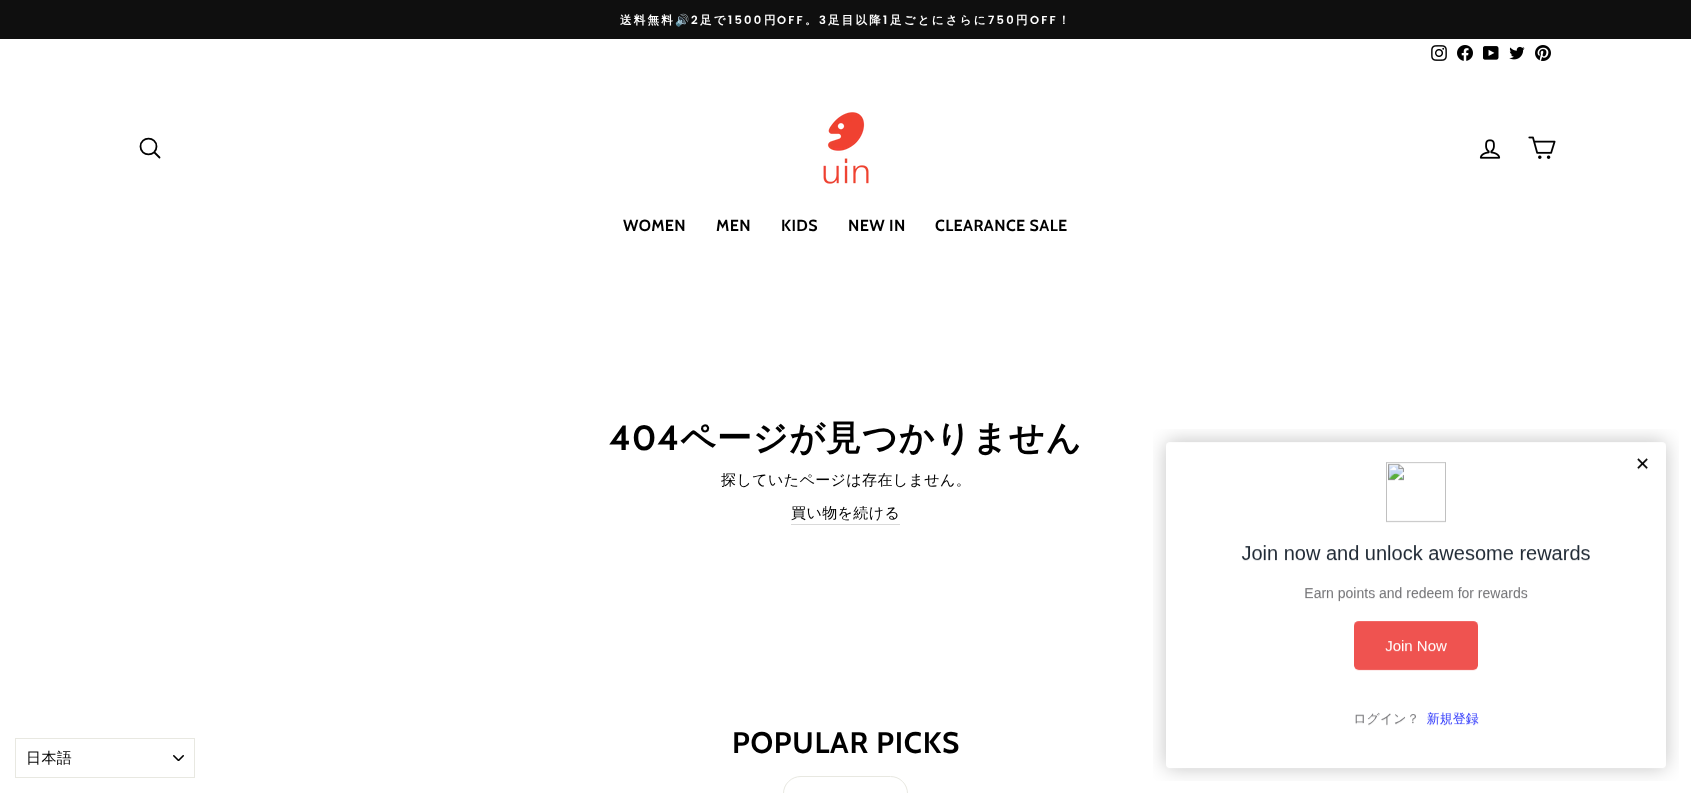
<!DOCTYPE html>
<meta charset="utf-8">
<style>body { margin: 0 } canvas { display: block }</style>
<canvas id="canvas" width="1691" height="793"></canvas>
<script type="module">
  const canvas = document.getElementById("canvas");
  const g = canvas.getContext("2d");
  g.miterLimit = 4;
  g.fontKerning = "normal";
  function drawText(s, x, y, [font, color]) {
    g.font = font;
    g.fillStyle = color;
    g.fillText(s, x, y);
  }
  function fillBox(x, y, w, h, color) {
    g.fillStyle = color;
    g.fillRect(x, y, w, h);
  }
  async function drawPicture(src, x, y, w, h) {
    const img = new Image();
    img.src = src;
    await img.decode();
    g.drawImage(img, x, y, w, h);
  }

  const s1 = ["500 15px WenQuanYi Zen Hei", "#000000"];
  const s2 = ["bold 11.5px WenQuanYi Zen Hei", "#FFFFFF"];
  const s3 = ["bold 11.5px Noto Color Emoji", "#FFFFFF"];
  const s4 = ["600 11.5px Poppins", "#FFFFFF"];
  const s5 = ["bold 16px Cabin", "#000000"];
  const s6 = ["bold 35px Cabin", "#000000"];
  const s7 = ["bold 35px WenQuanYi Zen Hei", "#000000"];
  const s8 = ["bold 29.75px Cabin", "#000000"];

  fillBox(0, 0, 1691, 793, "#FFFFFF");
  await drawPicture("pic1.png", 173, 755, 11, 6);
  g.strokeStyle = "#E8E8E1";
  g.strokeRect(15.5, 738.5, 179, 39);
  g.letterSpacing = "0.4px";
  drawText("日本語", 26, 763, s1);
  fillBox(0, 0, 1691, 39, "#0F0F0F");
  g.letterSpacing = "2.25px";
  drawText("送料無料", 620, 24, s2);
  drawText("🔊", 675, 24, s3);
  drawText("2", 691, 24, s4);
  drawText("足で", 700, 24, s2);
  drawText("1500", 728, 24, s4);
  drawText("円", 764, 24, s2);
  drawText("OFF", 777, 24, s4);
  drawText("。", 805, 24, s2);
  drawText("3", 819, 24, s4);
  drawText("足目以降", 828, 24, s2);
  drawText("1", 883, 24, s4);
  drawText("足ごとにさらに", 890, 24, s2);
  drawText("750", 988, 24, s4);
  drawText("円", 1016, 24, s2);
  drawText("OFF", 1030, 24, s4);
  drawText("！", 1058, 24, s2);
  await drawPicture("pic2.png", 1431, 45, 16, 16);
  await drawPicture("pic3.png", 1457, 45, 16, 16);
  await drawPicture("pic4.png", 1483, 46, 16, 14);
  await drawPicture("pic5.png", 1509, 46, 16, 14);
  await drawPicture("pic6.png", 1535, 45, 16, 16);
  g.beginPath();
  g.moveTo(156.5, 146.5);
  g.bezierCurveTo(156.5, 157, 140.5, 157, 140.5, 146.5);
  g.bezierCurveTo(140.5, 136, 156.5, 136, 156.5, 146.5);
  g.closePath();
  g.moveTo(159.5, 157.5);
  g.lineTo(154.5, 152.5);
  g.strokeStyle = "#000000";
  g.lineWidth = 1.8;
  g.lineCap = "round";
  g.lineJoin = "round";
  g.stroke();
  await drawPicture("pic7.png", 823, 112, 46, 72);
  await drawPicture("pic8.png", 1479, 139, 22, 20);
  await drawPicture("pic9.png", 1528, 136, 28, 23);
  g.letterSpacing = "0.4px";
  drawText("WOMEN", 623, 231, s5);
  drawText("MEN", 716, 231, s5);
  drawText("KIDS", 781, 231, s5);
  drawText("NEW IN", 848, 231, s5);
  drawText("CLEARANCE SALE", 935, 231, s5);
  g.letterSpacing = "0.9px";
  drawText("404", 609, 450, s6);
  drawText("ページが見つかりません", 680, 450, s7);
  g.letterSpacing = "0.4px";
  drawText("探していたページは存在しません。", 721, 485, s1);
  fillBox(791, 524, 109, 1, "#D9D9D9");
  drawText("買い物を続ける", 791, 518, s1);
  g.letterSpacing = "0.75px";
  drawText("POPULAR PICKS", 732, 753, s8);
  g.beginPath();
  g.roundRect(783.5, 776.5, 124, 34, 17);
  g.strokeStyle = "#E8E8E1";
  g.lineWidth = 1;
  g.lineJoin = "miter";
  g.stroke();
  await drawPicture("pic10.png", 1153, 429, 526, 352);
</script>
